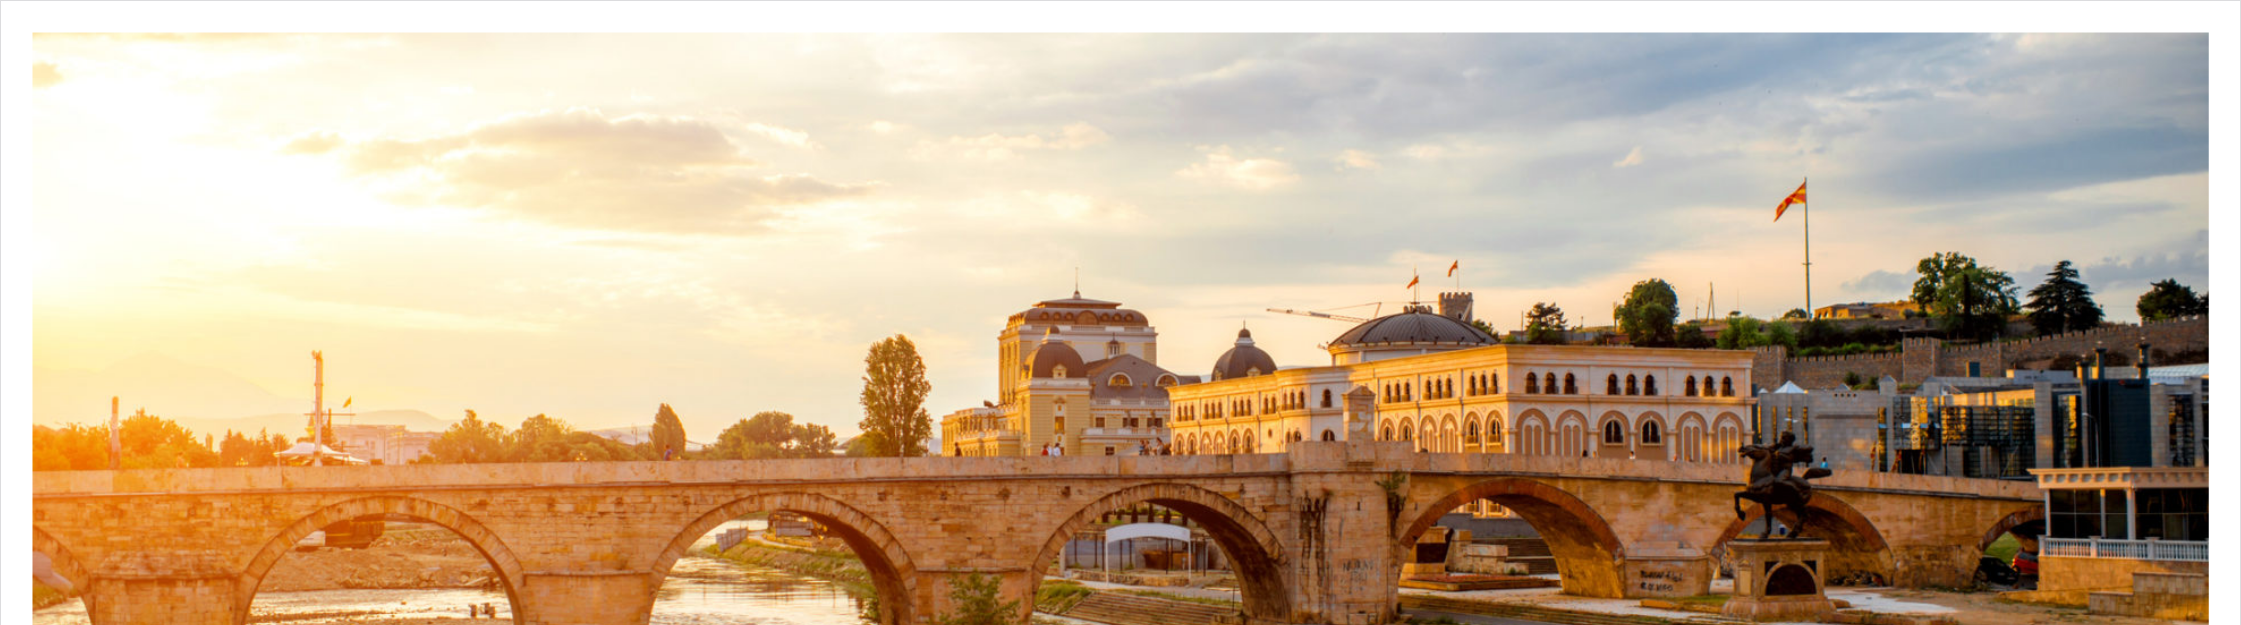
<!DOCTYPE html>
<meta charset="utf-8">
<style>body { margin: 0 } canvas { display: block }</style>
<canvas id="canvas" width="2241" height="625"></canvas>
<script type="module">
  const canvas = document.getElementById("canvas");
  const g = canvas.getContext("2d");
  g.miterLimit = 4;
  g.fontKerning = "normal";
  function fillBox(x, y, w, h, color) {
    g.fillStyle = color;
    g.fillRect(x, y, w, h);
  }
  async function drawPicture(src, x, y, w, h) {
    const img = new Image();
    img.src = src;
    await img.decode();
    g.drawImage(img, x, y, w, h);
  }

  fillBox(0, 0, 2241, 625, "#FFFFFF");
  g.strokeStyle = "#DCDCDE";
  g.strokeRect(0.5, 0.5, 2240, 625);
  await drawPicture("pic1.png", 32, 32, 2177, 593);
</script>
